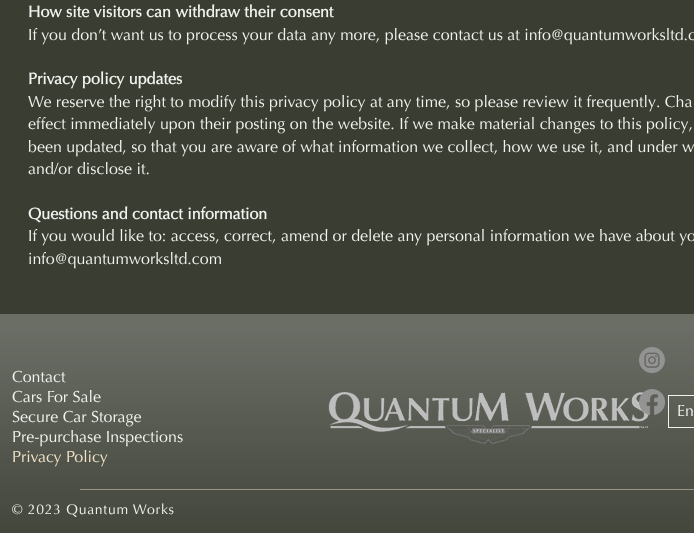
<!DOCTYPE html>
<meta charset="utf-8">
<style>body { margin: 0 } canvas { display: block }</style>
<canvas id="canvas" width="694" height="533"></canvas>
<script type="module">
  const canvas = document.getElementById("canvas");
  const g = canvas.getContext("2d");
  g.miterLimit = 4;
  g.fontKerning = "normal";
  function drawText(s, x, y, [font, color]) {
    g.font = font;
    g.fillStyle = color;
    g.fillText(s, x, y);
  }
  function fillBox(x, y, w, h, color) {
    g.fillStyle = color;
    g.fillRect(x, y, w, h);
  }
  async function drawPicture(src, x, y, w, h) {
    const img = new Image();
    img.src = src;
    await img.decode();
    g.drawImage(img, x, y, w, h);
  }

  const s1 = ["bold 16px Optima", "#F1F3EE"];
  const s2 = ["16px Optima", "#F1F3EE"];
  const s3 = ["16px Optima", "#F1E3C8"];
  const s4 = ["14px Optima", "#F1F3EE"];

  fillBox(0, 0, 694, 533, "#6A6E64");
  fillBox(0, 0, 694, 314, "#393D32");
  drawText("How site visitors can withdraw their consent", 28, 17, s1);
  drawText("If you don’t want us to process your data any more, please contact us at info@quantumworksltd.c", 28, 40, s2);
  drawText("Privacy policy updates", 28, 84, s1);
  drawText("We reserve the right to modify this privacy policy at any time, so please review it frequently. Cha", 28, 107, s2);
  drawText("effect immediately upon their posting on the website. If we make material changes to this policy,", 28, 129, s2);
  drawText("been updated, so that you are aware of what information we collect, how we use it, and under w", 28, 152, s2);
  drawText("and/or disclose it.", 28, 174, s2);
  drawText("Questions and contact information", 28, 219, s1);
  drawText("If you would like to: access, correct, amend or delete any personal information we have about yo", 28, 241, s2);
  drawText("info@quantumworksltd.com", 28, 264, s2);
  fillBox(0, 324, 694, 209, "#393D32");
  await drawPicture("pic3.png", 0, 324, 694, 209);
  await drawPicture("pic1.png", 639, 347, 26, 26);
  await drawPicture("pic4.png", 328, 391, 322, 53);
  await drawPicture("pic2.png", 639, 389, 26, 26);
  drawText("Contact", 12, 382, s2);
  drawText("Cars For Sale", 12, 402, s2);
  drawText("Secure Car Storage", 12, 422, s2);
  drawText("Pre-purchase Inspections", 12, 442, s2);
  drawText("Privacy Policy", 12, 462, s3);
  g.strokeStyle = "#F1F3EE";
  g.strokeRect(668.5, 395.5, 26, 32);
  drawText("En", 677, 416, s2);
  fillBox(80, 489, 614, 1, "#9E9683");
  g.letterSpacing = "0.7px";
  drawText("© 2023 Quantum Works", 12, 514, s4);
</script>
